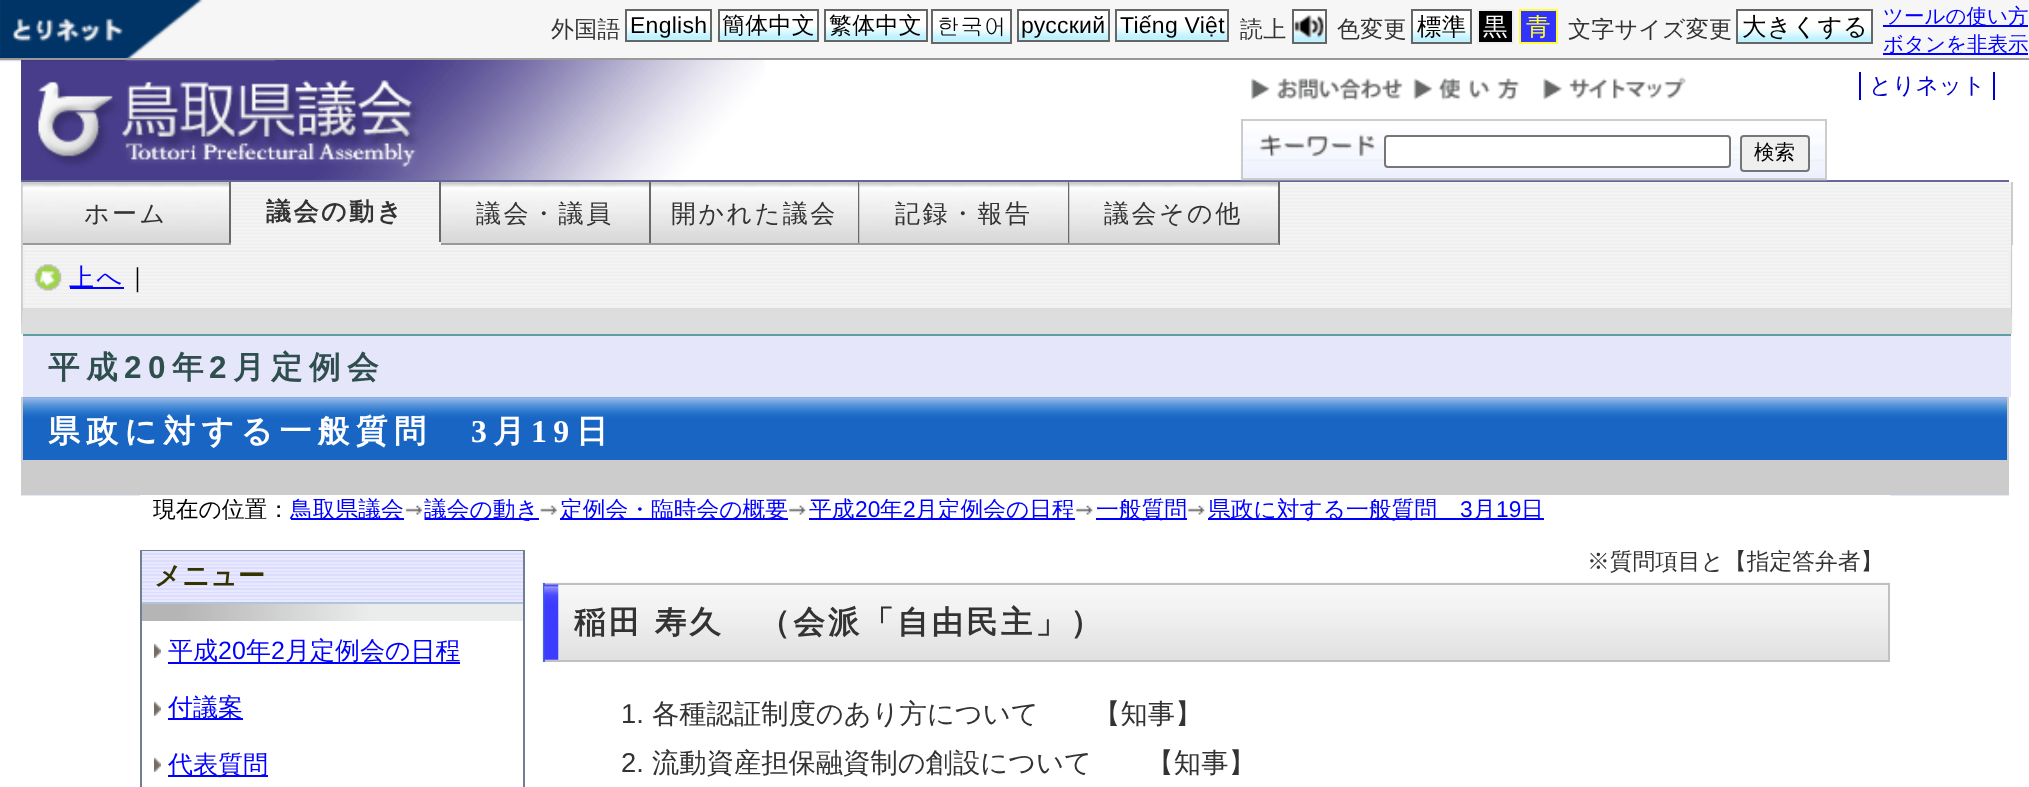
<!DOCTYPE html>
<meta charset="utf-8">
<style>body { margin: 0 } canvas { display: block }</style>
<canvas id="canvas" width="2029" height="787"></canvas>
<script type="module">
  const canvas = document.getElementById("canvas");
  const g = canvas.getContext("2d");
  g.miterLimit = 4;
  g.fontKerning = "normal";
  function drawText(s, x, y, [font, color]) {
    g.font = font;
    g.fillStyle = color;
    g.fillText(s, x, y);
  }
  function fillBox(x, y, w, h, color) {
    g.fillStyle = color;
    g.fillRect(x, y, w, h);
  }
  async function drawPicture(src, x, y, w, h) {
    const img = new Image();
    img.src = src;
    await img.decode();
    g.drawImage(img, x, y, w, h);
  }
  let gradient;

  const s1 = ["500 23px WenQuanYi Zen Hei", "#333333"];
  const s2 = ["23px Liberation Sans", "#000000"];
  const s3 = ["500 23px WenQuanYi Zen Hei", "#000000"];
  const s4 = ["23px Gulim", "#000000"];
  const s5 = ["500 24.5px WenQuanYi Zen Hei", "#000000"];
  const s6 = ["500 24.5px WenQuanYi Zen Hei", "#FFFFFF"];
  const s7 = ["500 24.5px WenQuanYi Zen Hei", "#FFFF33"];
  const s8 = ["500 20.5px WenQuanYi Zen Hei", "#0000FF"];
  const s9 = ["500 22.75px WenQuanYi Zen Hei", "#0000CC"];
  const s10 = ["500 20.5px WenQuanYi Zen Hei", "#000000"];
  const s11 = ["500 25px WenQuanYi Zen Hei", "#333333"];
  const s12 = ["bold 25px WenQuanYi Zen Hei", "#333333"];
  const s13 = ["500 25px WenQuanYi Zen Hei", "#0000FF"];
  const s14 = ["500 25px WenQuanYi Zen Hei", "#000000"];
  const s15 = ["bold 31.5px WenQuanYi Zen Hei", "#2F4F4F"];
  const s16 = ["bold 31.5px Liberation Sans", "#2F4F4F"];
  const s17 = ["bold 31.8px WenQuanYi Zen Hei", "#FFFFFF"];
  const s18 = ["bold 31.8px Liberation Serif", "#FFFFFF"];
  const s19 = ["500 22.75px WenQuanYi Zen Hei", "#000000"];
  const s20 = ["500 22.75px WenQuanYi Zen Hei", "#0000FF"];
  const s21 = ["22.75px Liberation Sans", "#0000FF"];
  const s22 = ["bold 27.3px WenQuanYi Zen Hei", "#333300"];
  const s23 = ["25px Liberation Sans", "#0000FF"];
  const s24 = ["500 22.75px WenQuanYi Zen Hei", "#333333"];
  const s25 = ["bold 31.5px WenQuanYi Zen Hei", "#333333"];
  const s26 = ["27.3px Liberation Sans", "#333333"];
  const s27 = ["500 27.3px WenQuanYi Zen Hei", "#333333"];

  fillBox(0, 0, 2029, 787, "#FFFFFF");
  fillBox(39, 0, 1990, 58, "#F6F6F6");
  await drawPicture("pic12.png", 21, 60, 744, 120);
  await drawPicture("pic1.png", 0, 0, 276, 62);
  fillBox(0, 58, 2029, 2, "#999999");
  g.letterSpacing = "0.25px";
  drawText("外国語", 551, 37, s1);
  fillBox(627, 11, 83, 15, "#FFFFFF");
  await drawPicture("pic2.png", 627, 26, 86, 15);
  g.strokeStyle = "#666666";
  g.lineWidth = 2;
  g.strokeRect(626, 10, 85, 31);
  drawText("English", 630, 33, s2);
  fillBox(720, 11, 97, 15, "#FFFFFF");
  await drawPicture("pic3.png", 716, 26, 104, 15);
  g.strokeRect(719, 10, 99, 31);
  drawText("簡体中文", 722, 33, s3);
  fillBox(826, 11, 100, 15, "#FFFFFF");
  await drawPicture("pic4.png", 823, 26, 103, 15);
  g.strokeRect(825, 10, 102, 31);
  drawText("繁体中文", 829, 33, s3);
  fillBox(933, 11, 77, 17, "#FFFFFF");
  await drawPicture("pic5.png", 930, 28, 80, 15);
  g.strokeRect(932, 10, 79, 33);
  drawText("한국어", 937, 35, s4);
  fillBox(1019, 11, 89, 15, "#FFFFFF");
  await drawPicture("pic6.png", 1016, 26, 92, 15);
  g.strokeRect(1018, 10, 91, 31);
  drawText("русский", 1021, 33, s2);
  fillBox(1117, 11, 110, 15, "#FFFFFF");
  await drawPicture("pic7.png", 1114, 26, 113, 15);
  g.strokeRect(1116, 10, 112, 31);
  drawText("Tiếng Việt", 1120, 33, s2);
  drawText("読上", 1240, 37, s1);
  fillBox(1294, 11, 31, 17, "#FFFFFF");
  await drawPicture("pic8.png", 1291, 28, 34, 15);
  g.strokeRect(1293, 10, 33, 33);
  await drawPicture("pic9.png", 1294, 14, 30, 24);
  drawText("色変更", 1337, 37, s1);
  fillBox(1413, 11, 57, 17, "#FFFFFF");
  await drawPicture("pic10.png", 1409, 28, 61, 15);
  g.strokeRect(1412, 10, 59, 33);
  drawText("標準", 1417, 35, s5);
  g.beginPath();
  g.rect(1478, 10, 35, 33);
  g.fill();
  g.strokeStyle = "#EEEEEE";
  g.stroke();
  drawText("黒", 1483, 35, s6);
  g.fillStyle = "#3333FF";
  g.beginPath();
  g.rect(1520, 10, 37, 33);
  g.fill();
  g.strokeStyle = "#FFFF33";
  g.stroke();
  drawText("青", 1526, 35, s7);
  drawText("文字サイズ変更", 1568, 37, s1);
  await drawPicture("pic11.png", 1735, 9, 136, 35);
  g.strokeStyle = "#666666";
  g.strokeRect(1737, 10, 135, 33);
  drawText("大きくする", 1742, 35, s5);
  fillBox(1883, 25, 145, 2, "#0000FF");
  g.letterSpacing = "0px";
  drawText("ツールの使い方", 1883, 23, s8);
  fillBox(1883, 53, 145, 2, "#0000FF");
  drawText("ボタンを非表示", 1883, 51, s8);
  fillBox(21, 180, 1988, 2, "#666699");
  fillBox(1993, 72, 2, 28, "#0000CC");
  fillBox(1859, 72, 2, 28, "#0000CC");
  drawText("とりネット", 1869, 93, s9);
  await drawPicture("pic13.png", 1251, 78, 152, 23);
  await drawPicture("pic14.png", 1413, 78, 107, 23);
  await drawPicture("pic15.png", 1543, 76, 143, 24);
  await drawPicture("pic16.png", 1240, 119, 587, 62);
  g.strokeStyle = "#CCCCCC";
  g.strokeRect(1242, 120, 584, 59);
  await drawPicture("pic17.png", 1259, 134, 116, 23);
  g.fillStyle = "#FFFFFF";
  g.beginPath();
  g.roundRect(1385, 136, 345, 31, 3);
  g.fill();
  g.strokeStyle = "#767676";
  g.stroke();
  g.fillStyle = "#EFEFEF";
  g.beginPath();
  g.roundRect(1741, 136, 68, 35, 3);
  g.fill();
  g.stroke();
  drawText("検索", 1754, 159, s10);
  await drawPicture("pic18.png", 231, 182, 1780, 63);
  fillBox(2011, 182, 2, 63, "#CCCCCC");
  fillBox(21, 182, 2, 63, "#CCCCCC");
  await drawPicture("pic19.png", 22, 182, 207, 63);
  fillBox(23, 182, 208, 2, "#CCCCCC");
  fillBox(229, 182, 2, 63, "#696969");
  fillBox(23, 243, 208, 2, "#999999");
  g.letterSpacing = "2.5px";
  drawText("ホーム", 84, 222, s11);
  fillBox(439, 182, 2, 60, "#696969");
  drawText("議会の動き", 266, 220, s12);
  await drawPicture("pic20.png", 441, 184, 208, 59);
  fillBox(441, 182, 418, 2, "#CCCCCC");
  fillBox(649, 182, 2, 63, "#696969");
  fillBox(441, 243, 210, 2, "#999999");
  drawText("議会・議員", 476, 222, s11);
  await drawPicture("pic21.png", 651, 184, 207, 59);
  fillBox(858, 182, 2, 63, "#696969");
  fillBox(651, 243, 208, 2, "#999999");
  drawText("開かれた議会", 671, 222, s11);
  await drawPicture("pic22.png", 859, 184, 209, 59);
  fillBox(859, 182, 210, 2, "#CCCCCC");
  fillBox(1068, 182, 2, 63, "#696969");
  fillBox(859, 243, 210, 2, "#999999");
  drawText("記録・報告", 895, 222, s11);
  await drawPicture("pic22.png", 1069, 184, 209, 59);
  fillBox(1069, 182, 210, 2, "#CCCCCC");
  fillBox(1278, 182, 2, 63, "#696969");
  fillBox(1069, 243, 210, 2, "#999999");
  drawText("議会その他", 1104, 222, s11);
  await drawPicture("pic23.png", 21, 245, 1992, 89);
  g.fillStyle = "#CCCCCC";
  g.beginPath();
  g.moveTo(2012, 245);
  g.lineTo(2012, 334);
  g.lineTo(2011, 308);
  g.lineTo(2011, 245);
  g.closePath();
  g.fill();
  g.fillStyle = "#DDDDDD";
  g.beginPath();
  g.moveTo(2012, 334);
  g.lineTo(21, 334);
  g.lineTo(23, 308);
  g.lineTo(2011, 308);
  g.closePath();
  g.fill();
  g.fillStyle = "#CCCCCC";
  g.beginPath();
  g.moveTo(21, 334);
  g.lineTo(21, 245);
  g.lineTo(23, 245);
  g.lineTo(23, 308);
  g.closePath();
  g.fill();
  await drawPicture("pic24.png", 22, 250, 1987, 55);
  g.strokeStyle = "#EEEEEE";
  g.strokeRect(24, 251, 1986, 53);
  await drawPicture("pic25.png", 34, 264, 28, 27);
  fillBox(70, 287, 54, 2, "#0000FF");
  drawText("上へ", 69, 286, s13);
  drawText("｜", 125, 286, s14);
  fillBox(23, 336, 1988, 61, "#E6E6FA");
  fillBox(23, 334, 1988, 2, "#5F9EA0");
  g.letterSpacing = "6.5px";
  drawText("平成", 48, 378, s15);
  drawText("20", 124, 378, s16);
  drawText("年", 172, 378, s15);
  drawText("2", 209, 378, s16);
  drawText("月定例会", 233, 378, s15);
  await drawPicture("pic26.png", 21, 397, 1988, 99);
  fillBox(2007, 397, 2, 63, "#CCCCCC");
  fillBox(23, 460, 1986, 35, "#CCCCCC");
  fillBox(21, 397, 2, 98, "#CCCCCC");
  g.letterSpacing = "6.4px";
  drawText("県政に対する一般質問", 48, 442, s17);
  drawText("3", 471, 442, s18);
  drawText("月", 493, 442, s17);
  drawText("19", 531, 442, s18);
  drawText("日", 576, 442, s17);
  fillBox(140, 495, 1750, 1, "#FFFFFF");
  g.letterSpacing = "0px";
  drawText("現在の位置：", 153, 517, s19);
  fillBox(291, 518, 113, 2, "#0000FF");
  drawText("鳥取県議会", 290, 517, s20);
  await drawPicture("pic27.png", 405, 505, 18, 10);
  fillBox(425, 518, 114, 2, "#0000FF");
  drawText("議会の動き", 424, 517, s20);
  await drawPicture("pic28.png", 540, 505, 17, 10);
  fillBox(560, 518, 228, 2, "#0000FF");
  drawText("定例会・臨時会の概要", 560, 517, s20);
  await drawPicture("pic29.png", 788, 505, 18, 10);
  fillBox(809, 518, 266, 2, "#0000FF");
  drawText("平成", 809, 517, s20);
  drawText("20", 855, 517, s21);
  drawText("年", 880, 517, s20);
  drawText("2", 903, 517, s21);
  drawText("月定例会の日程", 915, 517, s20);
  await drawPicture("pic30.png", 1075, 505, 18, 10);
  fillBox(1096, 518, 91, 2, "#0000FF");
  drawText("一般質問", 1096, 517, s20);
  await drawPicture("pic29.png", 1187, 505, 18, 10);
  fillBox(1208, 518, 336, 2, "#0000FF");
  drawText("県政に対する一般質問", 1208, 517, s20);
  drawText("3", 1460, 517, s21);
  drawText("月", 1473, 517, s20);
  drawText("19", 1496, 517, s21);
  drawText("日", 1521, 517, s20);
  g.strokeStyle = "#708090";
  g.strokeRect(141, 551, 383, 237);
  await drawPicture("pic31.png", 142, 551, 381, 51);
  fillBox(142, 602, 381, 2, "#B0C4DE");
  drawText("メニュー", 154, 585, s22);
  gradient = g.createLinearGradient(142, 613, 523, 613);
  gradient.addColorStop(0, "#B5B5B5");
  gradient.addColorStop(0.1, "#B5B5B5");
  gradient.addColorStop(0.6, "#EBECEC");
  gradient.addColorStop(1, "#EBECEC");
  g.fillStyle = gradient;
  g.fillRect(142, 604, 381, 17);
  await drawPicture("pic32.png", 154, 644, 7, 14);
  drawText("平成", 168, 659, s13);
  drawText("20", 218, 659, s23);
  fillBox(168, 662, 292, 2, "#0000FF");
  drawText("年", 246, 659, s13);
  drawText("2", 271, 659, s23);
  drawText("月定例会の日程", 285, 659, s13);
  await drawPicture("pic33.png", 154, 701, 7, 15);
  fillBox(168, 718, 75, 2, "#0000FF");
  drawText("付議案", 168, 716, s13);
  await drawPicture("pic33.png", 154, 757, 7, 15);
  fillBox(168, 775, 100, 2, "#0000FF");
  drawText("代表質問", 168, 773, s13);
  drawText("※質問項目と【指定答弁者】", 1587, 569, s24);
  await drawPicture("pic34.png", 542, 582, 1348, 80);
  fillBox(543, 583, 1347, 2, "#C0C0C0");
  fillBox(1888, 583, 2, 79, "#C0C0C0");
  fillBox(543, 660, 1347, 2, "#C0C0C0");
  fillBox(543, 583, 2, 79, "#4169E1");
  await drawPicture("pic35.png", 544, 584, 15, 76);
  g.letterSpacing = "3.1px";
  g.wordSpacing = "-1px";
  drawText("稲田 寿久　（会派「自由民主」）", 574, 633, s25);
  g.letterSpacing = "0px";
  g.wordSpacing = "0px";
  drawText("1.", 621, 723, s26);
  drawText("各種認証制度のあり方について　　【知事】", 652, 723, s27);
  drawText("2.", 621, 772, s26);
  drawText("流動資産担保融資制の創設について　　【知事】", 652, 772, s27);
</script>
